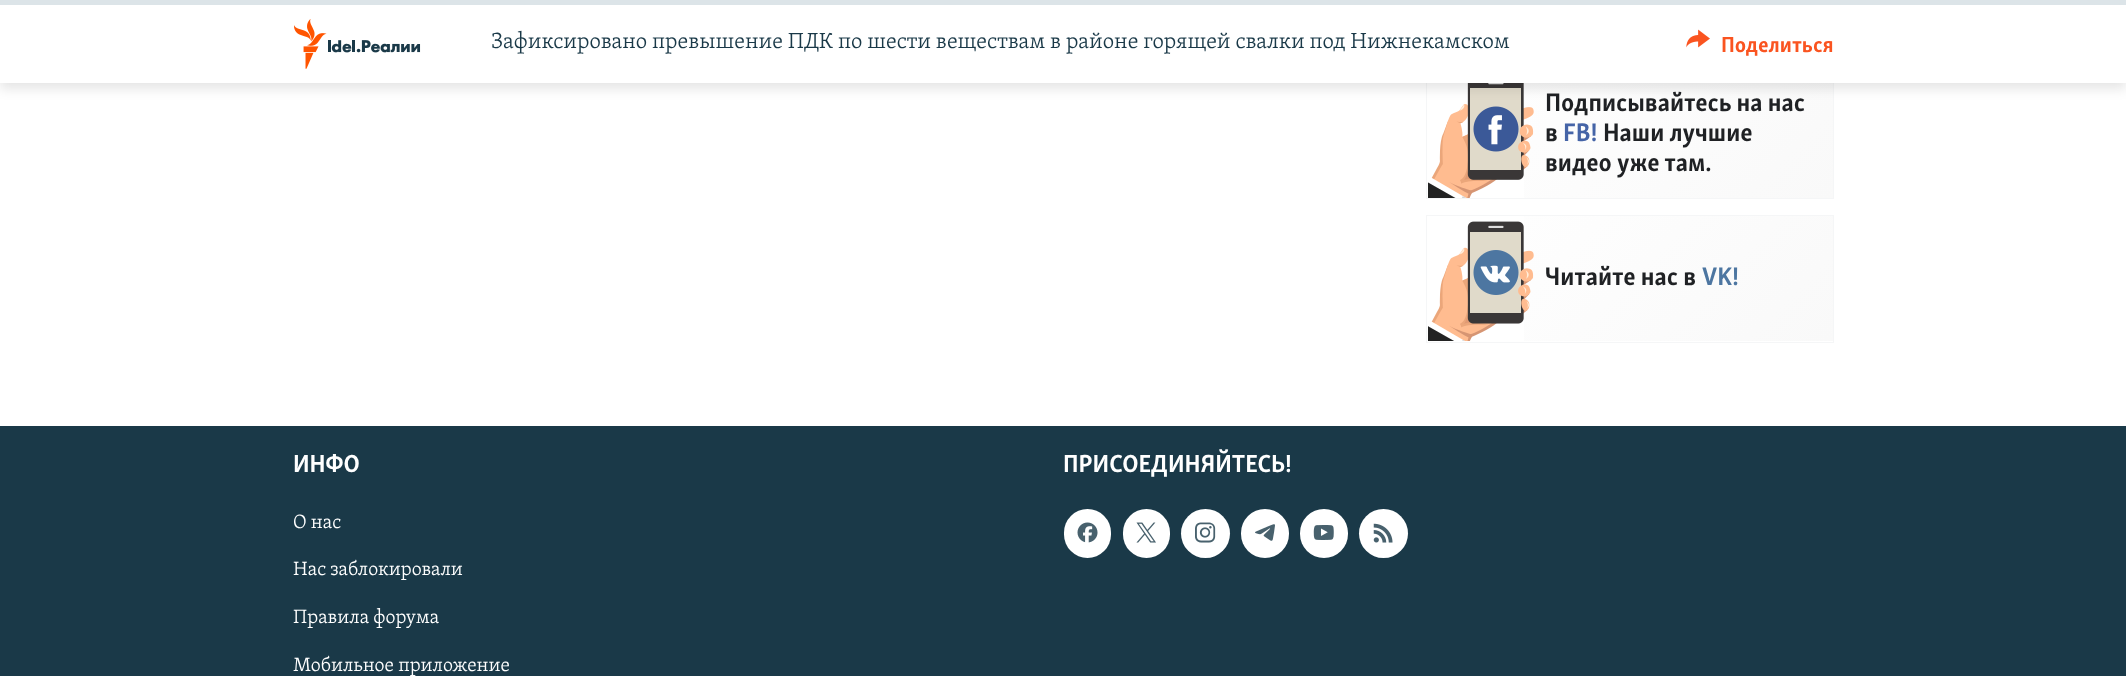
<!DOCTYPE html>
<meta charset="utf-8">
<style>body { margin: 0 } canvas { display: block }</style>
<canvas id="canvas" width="2126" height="676"></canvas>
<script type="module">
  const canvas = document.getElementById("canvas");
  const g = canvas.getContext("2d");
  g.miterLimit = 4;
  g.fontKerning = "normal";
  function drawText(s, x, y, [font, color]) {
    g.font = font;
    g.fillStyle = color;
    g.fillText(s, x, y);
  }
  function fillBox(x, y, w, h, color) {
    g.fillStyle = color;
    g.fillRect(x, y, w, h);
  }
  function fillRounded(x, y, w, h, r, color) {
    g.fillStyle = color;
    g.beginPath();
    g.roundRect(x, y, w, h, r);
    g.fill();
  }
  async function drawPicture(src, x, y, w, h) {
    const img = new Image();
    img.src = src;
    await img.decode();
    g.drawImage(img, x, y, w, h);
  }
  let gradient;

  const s1 = ["300 22.5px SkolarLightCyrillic", "#1A3948"];
  const s2 = ["bold 22.5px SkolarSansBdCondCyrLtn", "#FA5420"];
  const s3 = ["bold 26.25px SkolarSansBdCondCyrLtn", "#1F2124"];
  const s4 = ["bold 26.25px SkolarSansBdCondCyrLtn", "#4564A7"];
  const s5 = ["bold 26.25px SkolarSansBdCondCyrLtn", "#4D76A1"];
  const s6 = ["bold 25.25px SkolarSansBdCondCyrLtn", "#FFFFFF"];
  const s7 = ["300 19.75px SkolarLightCyrillic", "#FFFFFF"];

  fillBox(0, 0, 2126, 676, "#FFFFFF");
  gradient = g.createLinearGradient(1498, 2.5, 1763, 268);
  gradient.addColorStop(0, "#FFFFFF");
  gradient.addColorStop(1, "#F9F9F9");
  g.fillStyle = gradient;
  g.fillRect(1524, 83, 309, 115);
  g.strokeStyle = "#F5F6F7";
  g.strokeRect(1426.5, 71.5, 407, 127);
  await drawPicture("pic3.png", 1428, 83, 106, 115);
  g.fillStyle = "rgba(0, 0, 0, 0.1)";
  g.filter = "blur(6px)";
  g.beginPath();
  g.rect(0, 6, 2126, 83);
  g.fill();
  g.filter = "none";
  fillBox(0, 5, 2126, 78, "#FFFFFF");
  fillBox(0, 0, 2126, 5, "#DCE4E8");
  await drawPicture("pic1.png", 294, 19, 127, 50);
  drawText("Зафиксировано превышение ПДК по шести веществам в районе горящей свалки под Нижнекамском", 491, 48, s1);
  await drawPicture("pic2.png", 1686, 29, 24, 19);
  drawText("Поделиться", 1721, 52, s2);
  drawText("Подписывайтесь на нас", 1545, 111, s3);
  drawText("в", 1545, 141, s3);
  drawText("FB!", 1563, 141, s4);
  drawText("Наши лучшие", 1603, 141, s3);
  drawText("видео уже там.", 1545, 171, s3);
  gradient = g.createLinearGradient(1498, 146, 1763, 411);
  gradient.addColorStop(0, "#FFFFFF");
  gradient.addColorStop(1, "#F9F9F9");
  g.fillStyle = gradient;
  g.fillRect(1524, 216, 309, 125);
  g.strokeRect(1426.5, 215.5, 407, 127);
  await drawPicture("pic4.png", 1428, 221, 106, 120);
  drawText("Читайте нас в", 1545, 285, s3);
  drawText("VK!", 1702, 285, s5);
  fillBox(0, 426, 2126, 250, "#1A3948");
  drawText("ИНФО", 293, 472, s6);
  drawText("О нас", 293, 528, s7);
  drawText("Нас заблокировали", 293, 575, s7);
  drawText("Правила форума", 293, 623, s7);
  drawText("Мобильное приложение", 293, 671, s7);
  drawText("ПРИСОЕДИНЯЙТЕСЬ!", 1063, 472, s6);
  fillRounded(1064, 509, 47, 49, 23.5, "#FFFFFF");
  await drawPicture("pic5.png", 1077, 522, 21, 21);
  fillRounded(1123, 509, 47, 49, 23.5, "#FFFFFF");
  await drawPicture("pic6.png", 1136, 522, 20, 21);
  g.beginPath();
  g.arc(1205.5, 533.5, 24.5, 0, Math.PI * 2);
  g.fill();
  await drawPicture("pic7.png", 1195, 522, 21, 21);
  fillRounded(1241, 509, 48, 49, 24, "#FFFFFF");
  await drawPicture("pic8.png", 1255, 524, 20, 17);
  fillRounded(1300, 509, 48, 49, 24, "#FFFFFF");
  await drawPicture("pic9.png", 1313, 525, 21, 15);
  g.beginPath();
  g.arc(1383.5, 533.5, 24.5, 0, Math.PI * 2);
  g.fill();
  await drawPicture("pic10.png", 1373, 523, 20, 20);
</script>
